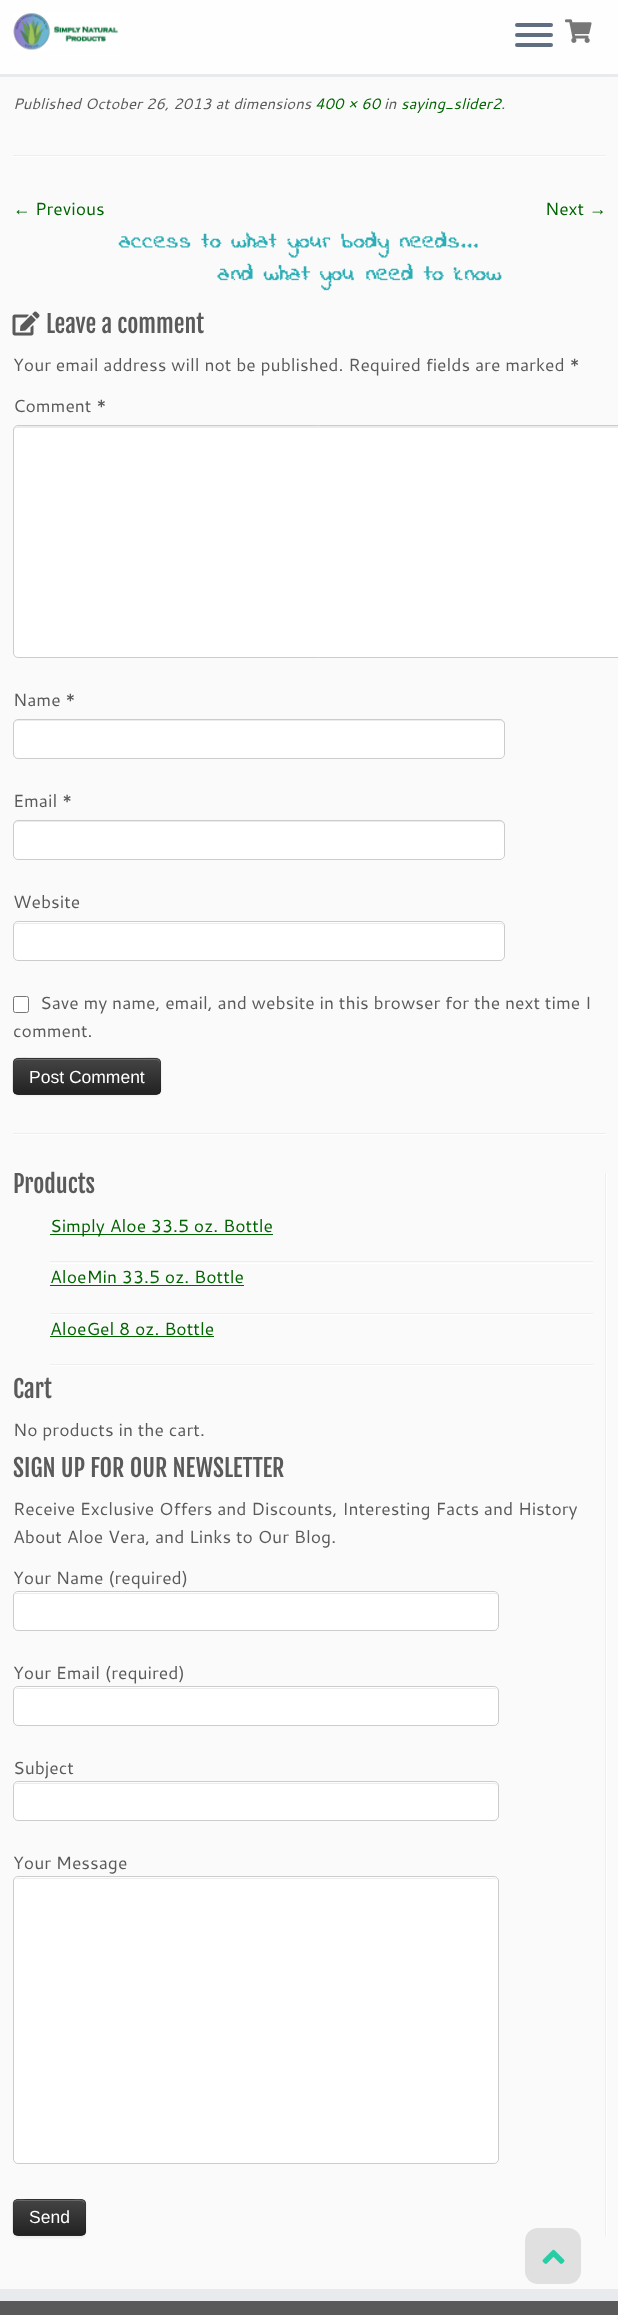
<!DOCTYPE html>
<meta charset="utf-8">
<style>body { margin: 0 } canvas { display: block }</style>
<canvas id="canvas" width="618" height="2315"></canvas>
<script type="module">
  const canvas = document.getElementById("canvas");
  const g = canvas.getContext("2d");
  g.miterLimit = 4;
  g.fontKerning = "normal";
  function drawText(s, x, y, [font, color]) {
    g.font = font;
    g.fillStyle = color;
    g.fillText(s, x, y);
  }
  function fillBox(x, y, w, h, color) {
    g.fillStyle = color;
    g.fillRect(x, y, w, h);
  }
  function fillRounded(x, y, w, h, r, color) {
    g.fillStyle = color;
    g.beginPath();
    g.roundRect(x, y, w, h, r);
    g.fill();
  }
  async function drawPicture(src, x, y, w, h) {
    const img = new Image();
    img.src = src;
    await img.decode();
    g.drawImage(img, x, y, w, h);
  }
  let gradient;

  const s1 = ["italic 15px Cantarell", "#5A5A5A"];
  const s2 = ["italic 15px Cantarell", "#006400"];
  const s3 = ["17.5px Liberation Serif", "#006400"];
  const s4 = ["17.5px Cantarell", "#006400"];
  const s5 = ["24px Fjalla One", "#5A5A5A"];
  const s6 = ["17.5px Cantarell", "#5A5A5A"];
  const s7 = ["17.5px Liberation Sans", "#FFFFFF"];

  fillBox(0, 0, 618, 2315, "#FAFAFA");
  fillBox(0, 0, 618, 74, "rgba(255, 255, 255, 0.8)");
  fillBox(0, 74, 618, 3, "#E9EAEE");
  await drawPicture("pic1.png", 13, 13, 106, 37);
  fillRounded(515, 23, 38, 4, 2, "#5F6F81");
  fillRounded(515, 33, 38, 4, 2, "#5F6F81");
  fillRounded(515, 43, 38, 4, 2, "#5F6F81");
  await drawPicture("pic2.png", 565, 19, 27, 24);
  drawText("Published October 26, 2013 at dimensions", 13, 109, s1);
  drawText("400 × 60", 315, 109, s2);
  drawText("in", 384, 109, s1);
  drawText("saying_slider2", 401, 109, s2);
  drawText(".", 501, 109, s1);
  fillBox(13, 155, 593, 1, "#EEEEEE");
  fillBox(13, 156, 593, 1, "#FFFFFF");
  drawText("←", 13, 215, s3);
  drawText("Previous", 35, 215, s4);
  drawText("Next", 545, 215, s4);
  drawText("→", 589, 215, s3);
  await drawPicture("pic3.png", 118, 231, 384, 60);
  await drawPicture("pic4.png", 12, 311, 28, 25);
  drawText("Leave a comment", 46, 333, s5);
  drawText("Your email address will not be published. Required fields are marked *", 13, 371, s6);
  drawText("Comment *", 13, 412, s6);
  fillRounded(13, 425, 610, 233, 5, "#FFFFFF");
  g.fillStyle = "#ECECEC";
  g.beginPath();
  g.moveTo(18, 428);
  g.lineTo(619, 428);
  g.bezierCurveTo(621, 428, 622, 429, 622, 431);
  g.lineTo(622, 655);
  g.bezierCurveTo(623, 654, 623, 653, 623, 652);
  g.lineTo(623, 430);
  g.bezierCurveTo(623, 428, 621, 426, 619, 426);
  g.lineTo(18, 426);
  g.bezierCurveTo(16, 426, 14, 428, 14, 430);
  g.lineTo(14, 431);
  g.bezierCurveTo(14, 429, 15, 428, 18, 428);
  g.closePath();
  g.fill();
  g.beginPath();
  g.roundRect(13.5, 425.5, 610, 232, 4.5);
  g.strokeStyle = "#CCCCCC";
  g.stroke();
  drawText("Name *", 13, 706, s6);
  fillRounded(13, 719, 492, 40, 5, "#FFFFFF");
  g.fillStyle = "#ECECEC";
  g.beginPath();
  g.moveTo(18, 721);
  g.lineTo(500, 721);
  g.bezierCurveTo(502, 721, 504, 723, 504, 725);
  g.bezierCurveTo(504, 722, 503, 720, 500, 720);
  g.lineTo(18, 720);
  g.bezierCurveTo(15, 720, 14, 722, 14, 725);
  g.bezierCurveTo(14, 723, 15, 721, 18, 721);
  g.closePath();
  g.fill();
  g.beginPath();
  g.roundRect(13.5, 719.5, 491, 39, 4.5);
  g.stroke();
  drawText("Email *", 13, 807, s6);
  fillRounded(13, 820, 492, 40, 5, "#FFFFFF");
  g.fillStyle = "#ECECEC";
  g.beginPath();
  g.moveTo(18, 822);
  g.lineTo(500, 822);
  g.bezierCurveTo(502, 822, 504, 824, 504, 826);
  g.bezierCurveTo(504, 823, 503, 821, 500, 821);
  g.lineTo(18, 821);
  g.bezierCurveTo(15, 821, 14, 823, 14, 826);
  g.bezierCurveTo(14, 824, 15, 822, 18, 822);
  g.closePath();
  g.fill();
  g.beginPath();
  g.roundRect(13.5, 820.5, 491, 39, 4.5);
  g.stroke();
  drawText("Website", 13, 908, s6);
  fillRounded(13, 921, 492, 40, 5, "#FFFFFF");
  g.fillStyle = "#ECECEC";
  g.beginPath();
  g.moveTo(18, 924);
  g.lineTo(500, 924);
  g.bezierCurveTo(502, 924, 504, 925, 504, 928);
  g.bezierCurveTo(504, 925, 503, 923, 500, 923);
  g.lineTo(18, 923);
  g.bezierCurveTo(15, 923, 14, 925, 14, 928);
  g.bezierCurveTo(14, 925, 15, 924, 18, 924);
  g.closePath();
  g.fill();
  g.beginPath();
  g.roundRect(13.5, 921.5, 491, 39, 4.5);
  g.stroke();
  g.fillStyle = "#FFFFFF";
  g.beginPath();
  g.roundRect(13.5, 996.5, 15, 16, 2);
  g.fill();
  g.strokeStyle = "#767676";
  g.stroke();
  drawText("Save my name, email, and website in this browser for the next time I", 40, 1009, s6);
  drawText("comment.", 13, 1037, s6);
  g.fillStyle = "rgba(0, 0, 0, 0.05)";
  g.filter = "blur(1px)";
  g.beginPath();
  g.roundRect(13, 1059, 148, 37, 5);
  g.fill();
  g.filter = "none";
  fillRounded(13, 1058, 148, 37, 5, "#363636");
  g.save();
  g.beginPath();
  g.roundRect(13, 1058, 148, 37, 5);
  g.clip();
  gradient = g.createLinearGradient(87, 1059, 87, 1094);
  gradient.addColorStop(0, "#444444");
  gradient.addColorStop(1, "#222222");
  g.fillStyle = gradient;
  g.fillRect(13, 1059, 148, 35);
  g.restore();
  g.fillStyle = "#696969";
  g.beginPath();
  g.moveTo(18, 1060);
  g.lineTo(156, 1060);
  g.bezierCurveTo(158, 1060, 160, 1062, 160, 1064);
  g.lineTo(160, 1063);
  g.bezierCurveTo(160, 1061, 158, 1059, 156, 1059);
  g.lineTo(18, 1059);
  g.bezierCurveTo(16, 1059, 14, 1061, 14, 1063);
  g.lineTo(14, 1064);
  g.bezierCurveTo(14, 1062, 15, 1060, 18, 1060);
  g.closePath();
  g.fill();
  g.beginPath();
  g.moveTo(159.5, 1093);
  g.lineTo(156.5, 1094.5);
  g.lineTo(40.5, 1094.5);
  g.lineTo(17.5, 1094.5);
  g.lineTo(14.5, 1093);
  g.strokeStyle = "rgba(0, 0, 0, 0.25)";
  g.lineWidth = 1.2;
  g.stroke();
  g.beginPath();
  g.moveTo(14.5, 1093);
  g.bezierCurveTo(11.5, 1090.5, 13, 1084, 13, 1081);
  g.bezierCurveTo(13, 1052.5, 9, 1058, 40.5, 1058);
  g.lineTo(133, 1058);
  g.bezierCurveTo(165, 1058, 160.5, 1052.5, 160.5, 1081);
  g.bezierCurveTo(160.5, 1084, 162, 1090.5, 159.5, 1093);
  g.strokeStyle = "rgba(0, 0, 0, 0.1)";
  g.stroke();
  drawText("Post Comment", 29, 1083, s7);
  fillBox(13, 1133, 593, 1, "#EEEEEE");
  fillBox(13, 1134, 593, 1, "#FFFFFF");
  fillBox(605, 1173, 1, 1063, "#EEEEEE");
  drawText("Products", 13, 1193, s5);
  fillBox(50, 1261, 543, 1, "#EEEEEE");
  fillBox(50, 1234, 223, 1, "#006400");
  drawText("Simply Aloe 33.5 oz. Bottle", 50, 1232, s4);
  fillBox(50, 1263, 543, 1, "#FFFFFF");
  fillBox(50, 1313, 543, 1, "#EEEEEE");
  drawText("AloeMin 33.5 oz. Bottle", 50, 1283, s4);
  fillBox(50, 1285, 194, 1, "#006400");
  fillBox(50, 1314, 543, 1, "#FFFFFF");
  fillBox(50, 1364, 543, 1, "#EEEEEE");
  drawText("AloeGel 8 oz. Bottle", 50, 1335, s4);
  fillBox(50, 1336, 164, 1, "#006400");
  fillBox(50, 1365, 543, 1, "#FFFFFF");
  fillBox(606, 1173, 1, 1063, "#FFFFFF");
  drawText("Cart", 13, 1398, s5);
  drawText("No products in the cart.", 13, 1436, s6);
  drawText("SIGN UP FOR OUR NEWSLETTER", 13, 1477, s5);
  drawText("Receive Exclusive Offers and Discounts, Interesting Facts and History", 13, 1515, s6);
  drawText("About Aloe Vera, and Links to Our Blog.", 13, 1543, s6);
  drawText("Your Name (required)", 13, 1584, s6);
  fillRounded(13, 1591, 486, 40, 5, "#FFFFFF");
  g.fillStyle = "#ECECEC";
  g.beginPath();
  g.moveTo(18, 1594);
  g.lineTo(494, 1594);
  g.bezierCurveTo(496, 1594, 498, 1595, 498, 1598);
  g.bezierCurveTo(498, 1595, 497, 1593, 494, 1593);
  g.lineTo(18, 1593);
  g.bezierCurveTo(15, 1593, 14, 1595, 14, 1598);
  g.bezierCurveTo(14, 1595, 15, 1594, 18, 1594);
  g.closePath();
  g.fill();
  g.beginPath();
  g.roundRect(13.5, 1591.5, 485, 39, 4.5);
  g.strokeStyle = "#CCCCCC";
  g.lineWidth = 1;
  g.stroke();
  drawText("Your Email (required)", 13, 1679, s6);
  fillRounded(13, 1686, 486, 40, 5, "#FFFFFF");
  g.fillStyle = "#ECECEC";
  g.beginPath();
  g.moveTo(18, 1689);
  g.lineTo(494, 1689);
  g.bezierCurveTo(496, 1689, 498, 1690, 498, 1692);
  g.bezierCurveTo(498, 1690, 496, 1688, 494, 1688);
  g.lineTo(18, 1688);
  g.bezierCurveTo(16, 1688, 15, 1689, 14, 1690);
  g.bezierCurveTo(15, 1689, 16, 1689, 18, 1689);
  g.closePath();
  g.fill();
  g.beginPath();
  g.roundRect(13.5, 1686.5, 485, 39, 4.5);
  g.stroke();
  drawText("Subject", 13, 1774, s6);
  fillRounded(13, 1781, 486, 40, 5, "#FFFFFF");
  g.fillStyle = "#ECECEC";
  g.beginPath();
  g.moveTo(18, 1784);
  g.lineTo(494, 1784);
  g.bezierCurveTo(496, 1784, 498, 1785, 498, 1788);
  g.bezierCurveTo(498, 1785, 497, 1783, 494, 1783);
  g.lineTo(18, 1783);
  g.bezierCurveTo(15, 1783, 14, 1785, 14, 1788);
  g.bezierCurveTo(14, 1785, 15, 1784, 18, 1784);
  g.closePath();
  g.fill();
  g.beginPath();
  g.roundRect(13.5, 1781.5, 485, 39, 4.5);
  g.stroke();
  drawText("Your Message", 13, 1869, s6);
  fillRounded(13, 1876, 486, 288, 5, "#FFFFFF");
  g.fillStyle = "#ECECEC";
  g.beginPath();
  g.moveTo(18, 1879);
  g.lineTo(494, 1879);
  g.bezierCurveTo(496, 1879, 498, 1880, 498, 1882);
  g.bezierCurveTo(498, 1880, 496, 1878, 494, 1878);
  g.lineTo(18, 1878);
  g.bezierCurveTo(16, 1878, 15, 1879, 14, 1880);
  g.bezierCurveTo(15, 1879, 16, 1879, 18, 1879);
  g.closePath();
  g.fill();
  g.beginPath();
  g.roundRect(13.5, 1876.5, 485, 287, 4.5);
  g.stroke();
  g.fillStyle = "rgba(0, 0, 0, 0.05)";
  g.filter = "blur(1px)";
  g.beginPath();
  g.roundRect(13, 2200, 73, 38, 5);
  g.fill();
  g.filter = "none";
  fillRounded(13, 2199, 73, 37, 5, "#363636");
  g.save();
  g.beginPath();
  g.roundRect(13, 2199, 73, 37, 5);
  g.clip();
  gradient = g.createLinearGradient(49, 2200, 49, 2235);
  gradient.addColorStop(0, "#444444");
  gradient.addColorStop(1, "#222222");
  g.fillStyle = gradient;
  g.fillRect(13, 2200, 73, 35);
  g.restore();
  g.fillStyle = "rgba(255, 255, 255, 0.2)";
  g.beginPath();
  g.moveTo(18, 2201);
  g.lineTo(81, 2201);
  g.bezierCurveTo(83, 2201, 85, 2203, 85, 2205);
  g.bezierCurveTo(85, 2197, 76, 2200, 70, 2200);
  g.lineTo(28, 2200);
  g.bezierCurveTo(23, 2200, 14, 2197, 14, 2205);
  g.bezierCurveTo(14, 2203, 15, 2201, 18, 2201);
  g.closePath();
  g.fill();
  g.beginPath();
  g.moveTo(84.5, 2234.5);
  g.lineTo(81.5, 2235.5);
  g.lineTo(17, 2235.5);
  g.lineTo(14.5, 2234.5);
  g.strokeStyle = "rgba(0, 0, 0, 0.25)";
  g.lineWidth = 1.2;
  g.stroke();
  g.beginPath();
  g.moveTo(14.5, 2234.5);
  g.bezierCurveTo(12.5, 2232.5, 13, 2229, 13, 2226.5);
  g.lineTo(13, 2217.5);
  g.bezierCurveTo(13, 2198.5, 9.5, 2199.5, 28, 2199.5);
  g.lineTo(70.5, 2199.5);
  g.bezierCurveTo(89, 2199.5, 85.5, 2198.5, 85.5, 2217.5);
  g.lineTo(85.5, 2226.5);
  g.bezierCurveTo(85.5, 2229, 86.5, 2232.5, 84.5, 2234.5);
  g.strokeStyle = "rgba(0, 0, 0, 0.1)";
  g.stroke();
  drawText("Send", 29, 2223, s7);
  fillBox(0, 2301, 618, 14, "#5A5A5A");
  fillBox(0, 2289, 618, 12, "#E9EAEE");
  fillRounded(525, 2228, 56, 56, 13, "#E0E0E0");
  await drawPicture("pic5.png", 542, 2249, 23, 15);
</script>
